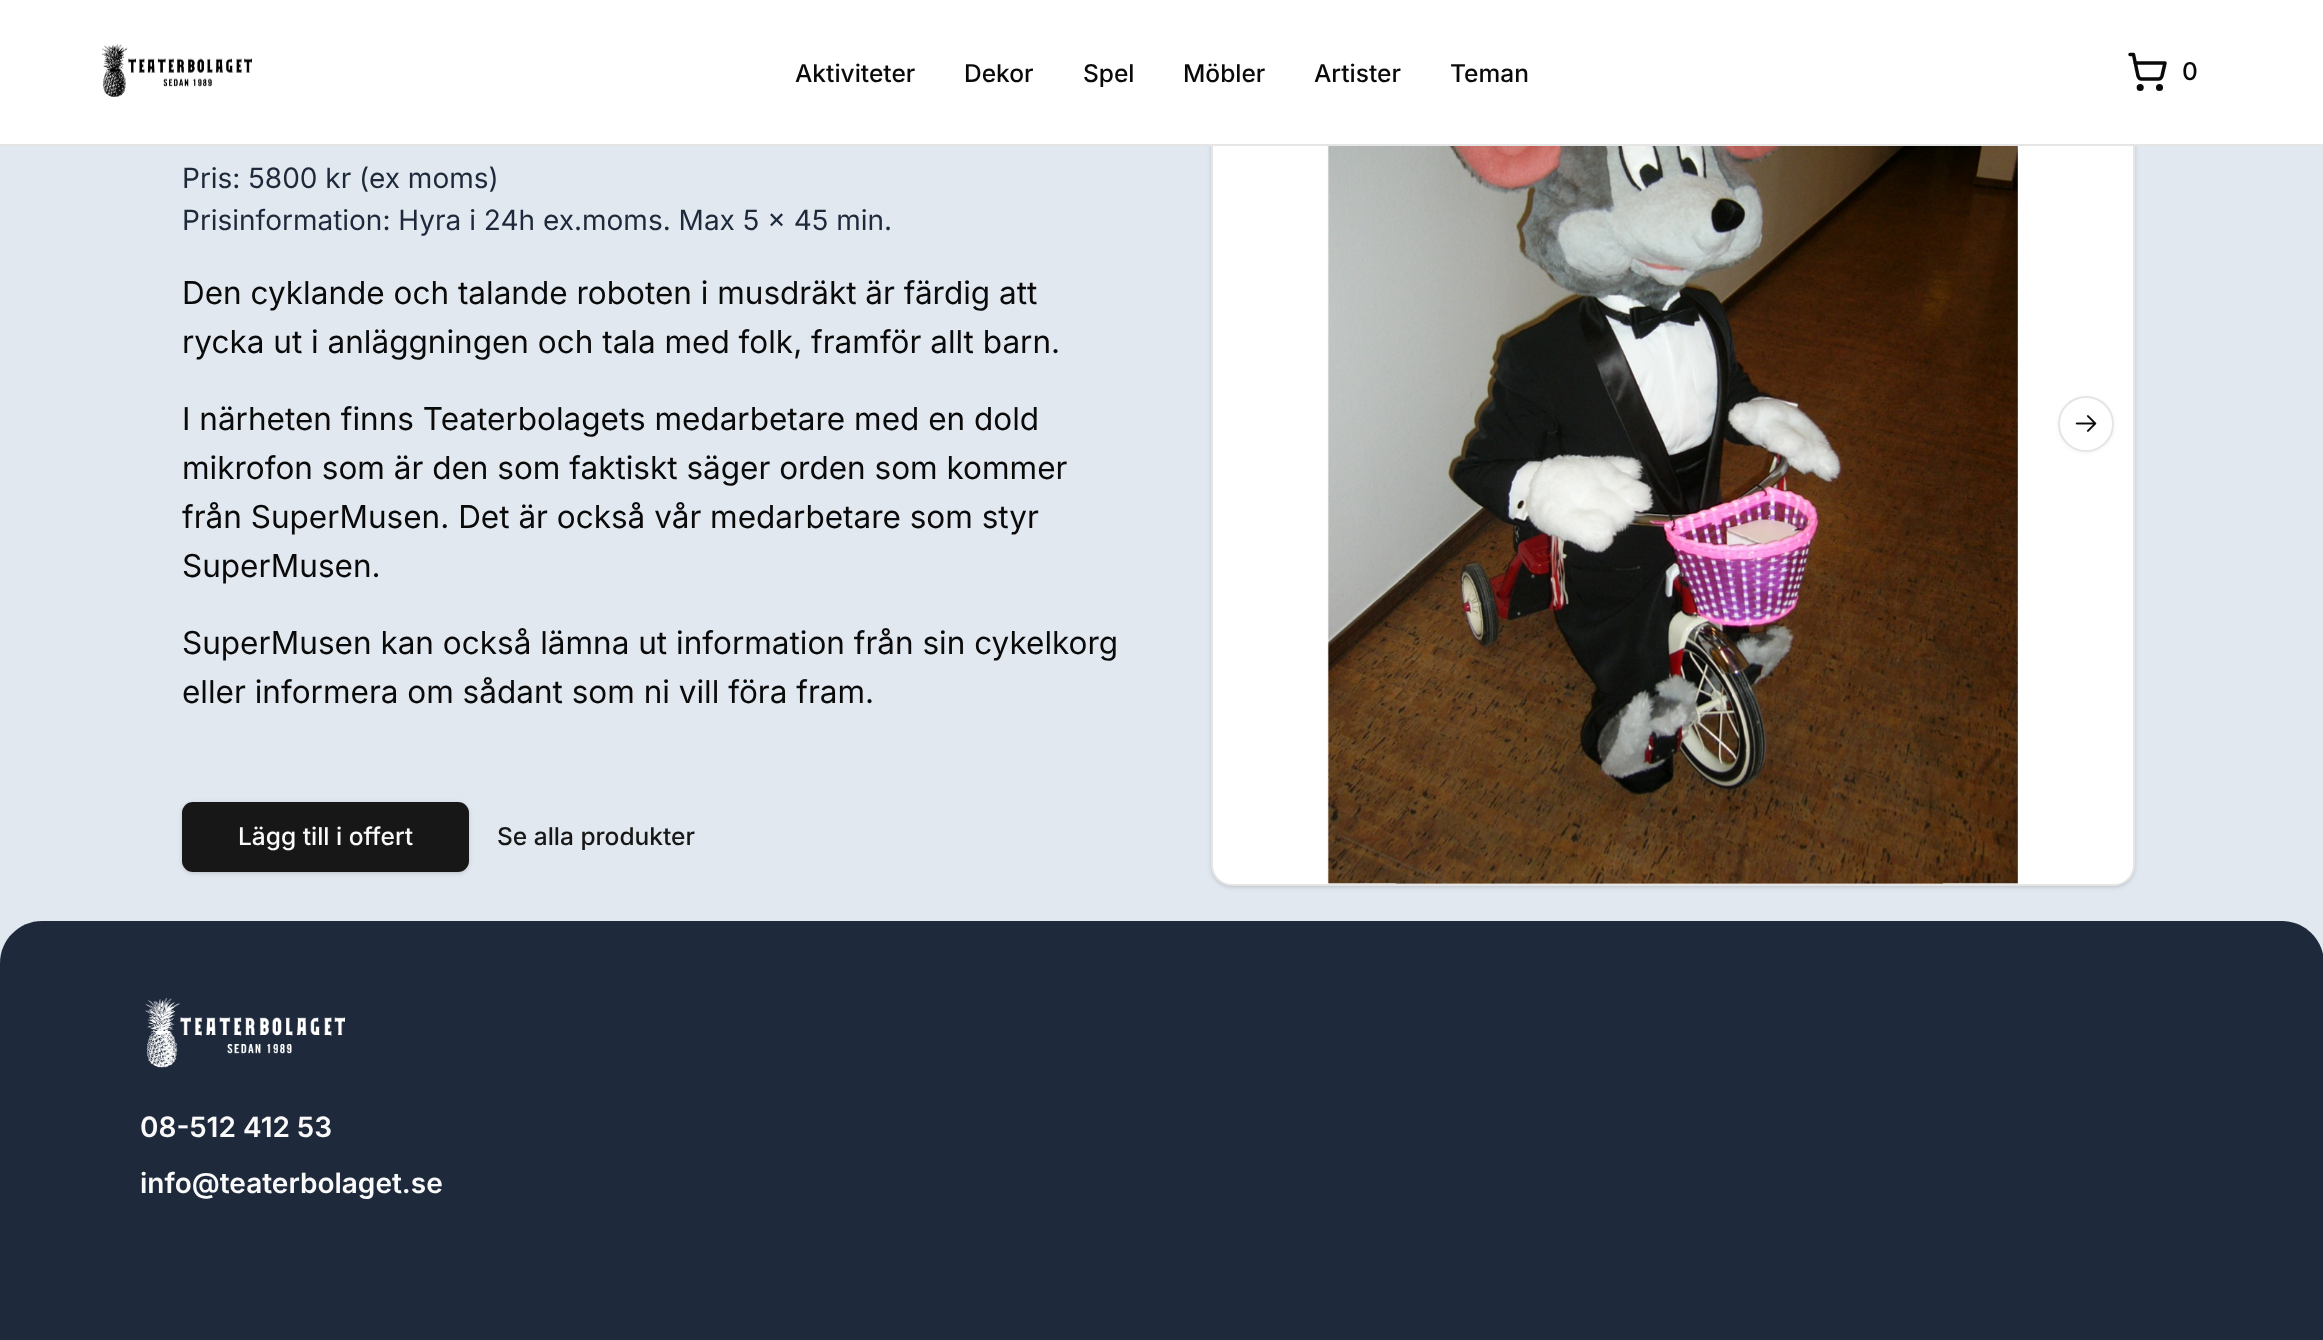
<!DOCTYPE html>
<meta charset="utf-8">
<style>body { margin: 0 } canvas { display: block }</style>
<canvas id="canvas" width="2323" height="1340"></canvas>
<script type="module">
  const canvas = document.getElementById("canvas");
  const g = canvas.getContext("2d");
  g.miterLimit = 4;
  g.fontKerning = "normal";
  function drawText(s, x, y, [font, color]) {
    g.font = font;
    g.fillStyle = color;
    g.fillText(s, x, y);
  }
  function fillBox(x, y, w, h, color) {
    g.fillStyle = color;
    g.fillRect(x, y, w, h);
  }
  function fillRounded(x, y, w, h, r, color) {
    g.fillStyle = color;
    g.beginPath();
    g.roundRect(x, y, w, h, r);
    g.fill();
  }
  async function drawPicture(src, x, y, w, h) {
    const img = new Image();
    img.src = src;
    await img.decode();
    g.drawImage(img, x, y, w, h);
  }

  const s1 = ["500 24.5px Inter", "#0A0A0A"];
  const s2 = ["28px Inter", "#1E293B"];
  const s3 = ["31.5px Inter", "#0A0A0A"];
  const s4 = ["500 24.5px Inter", "#FAFAFA"];
  const s5 = ["500 24.5px Inter", "#171717"];
  const s6 = ["600 28px Inter", "#FAFAFA"];

  fillBox(0, 0, 2323, 1340, "#E2E8F0");
  g.fillStyle = "rgba(0, 0, 0, 0.1)";
  g.filter = "blur(2px)";
  g.beginPath();
  g.roundRect(1213, -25, 920, 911, 19);
  g.fill();
  g.filter = "none";
  g.filter = "blur(2.5px)";
  g.beginPath();
  g.roundRect(1211, -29, 924, 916, 21);
  g.fill();
  g.filter = "none";
  g.fillStyle = "#FFFFFF";
  g.beginPath();
  g.roundRect(1212, -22, 922, 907, 20);
  g.fill();
  g.strokeStyle = "#E5E5E5";
  g.lineWidth = 2;
  g.stroke();
  fillBox(0, 0, 2323, 144, "#FFFFFF");
  fillBox(0, 144, 2323, 2, "#E5E5E5");
  await drawPicture("pic1.png", 102, 43, 150, 54);
  drawText("Aktiviteter", 795, 82, s1);
  drawText("Dekor", 964, 82, s1);
  drawText("Spel", 1083, 82, s1);
  drawText("Möbler", 1183, 82, s1);
  drawText("Artister", 1314, 82, s1);
  drawText("Teman", 1450, 82, s1);
  g.beginPath();
  g.arc(2140.2, 87.5, 1.8, 0, Math.PI * 2);
  g.strokeStyle = "#0A0A0A";
  g.lineWidth = 3.5;
  g.stroke();
  g.beginPath();
  g.arc(2159.5, 87.5, 1.8, 0, Math.PI * 2);
  g.stroke();
  g.beginPath();
  g.moveTo(2130, 54.5);
  g.lineTo(2133.5, 54.5);
  g.lineTo(2138, 76);
  g.bezierCurveTo(2138.5, 77.5, 2140, 79, 2141.5, 79);
  g.lineTo(2158.5, 79);
  g.bezierCurveTo(2160, 79, 2161.5, 77.5, 2162, 76);
  g.lineTo(2165, 63);
  g.lineTo(2135, 63);
  g.lineCap = "round";
  g.lineJoin = "round";
  g.stroke();
  drawText("0", 2182, 80, s1);
  drawText("Pris: 5800 kr (ex moms)", 182, 188, s2);
  drawText("Prisinformation: Hyra i 24h ex.moms. Max 5 x 45 min.", 182, 230, s2);
  drawText("Den cyklande och talande roboten i musdräkt är färdig att", 182, 304, s3);
  drawText("rycka ut i anläggningen och tala med folk, framför allt barn.", 182, 353, s3);
  drawText("I närheten finns Teaterbolagets medarbetare med en dold", 182, 430, s3);
  drawText("mikrofon som är den som faktiskt säger orden som kommer", 182, 479, s3);
  drawText("från SuperMusen. Det är också vår medarbetare som styr", 182, 528, s3);
  drawText("SuperMusen.", 182, 577, s3);
  drawText("SuperMusen kan också lämna ut information från sin cykelkorg", 182, 654, s3);
  drawText("eller informera om sådant som ni vill föra fram.", 182, 703, s3);
  g.fillStyle = "rgba(0, 0, 0, 0.1)";
  g.filter = "blur(2px)";
  g.beginPath();
  g.roundRect(184, 805, 283, 67, 9);
  g.fill();
  g.filter = "none";
  g.filter = "blur(2.5px)";
  g.beginPath();
  g.roundRect(182, 803, 287, 70, 11);
  g.fill();
  g.filter = "none";
  fillRounded(182, 802, 287, 70, 11, "#171717");
  drawText("Lägg till i offert", 238, 845, s4);
  drawText("Se alla produkter", 497, 845, s5);
  await drawPicture("pic2.png", 1327, 146, 691, 738);
  g.fillStyle = "rgba(0, 0, 0, 0.05)";
  g.filter = "blur(2px)";
  g.beginPath();
  g.roundRect(2058, 397, 56, 56, 28);
  g.fill();
  g.filter = "none";
  g.fillStyle = "#FFFFFF";
  g.beginPath();
  g.arc(2086, 424, 27, 0, Math.PI * 2);
  g.fill();
  g.strokeStyle = "#E5E5E5";
  g.lineWidth = 2;
  g.stroke();
  await drawPicture("pic3.png", 2075, 415, 22, 17);
  g.fillStyle = "#1E293B";
  g.beginPath();
  g.moveTo(42, 921);
  g.lineTo(2282, 921);
  g.bezierCurveTo(2305, 921, 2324, 940, 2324, 963);
  g.lineTo(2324, 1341);
  g.lineTo(0, 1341);
  g.lineTo(0, 963);
  g.bezierCurveTo(0, 940, 19, 921, 42, 921);
  g.closePath();
  g.fill();
  await drawPicture("pic4.png", 145, 997, 200, 71);
  drawText("08-512 412 53", 140, 1137, s6);
  drawText("info@teaterbolaget.se", 140, 1193, s6);
</script>
